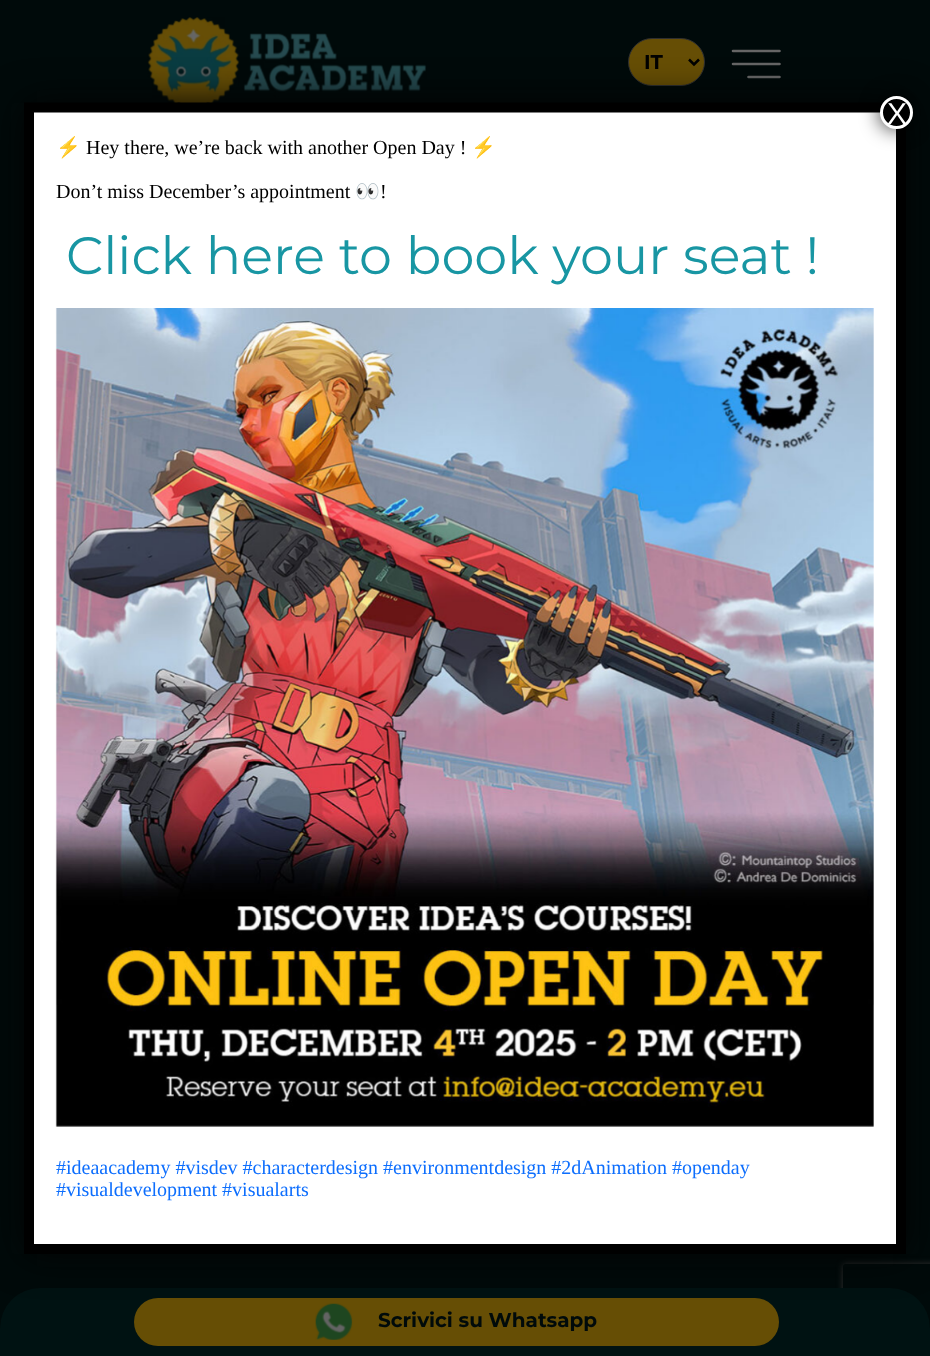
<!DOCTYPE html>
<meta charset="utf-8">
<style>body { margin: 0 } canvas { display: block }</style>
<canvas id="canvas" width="930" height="1356"></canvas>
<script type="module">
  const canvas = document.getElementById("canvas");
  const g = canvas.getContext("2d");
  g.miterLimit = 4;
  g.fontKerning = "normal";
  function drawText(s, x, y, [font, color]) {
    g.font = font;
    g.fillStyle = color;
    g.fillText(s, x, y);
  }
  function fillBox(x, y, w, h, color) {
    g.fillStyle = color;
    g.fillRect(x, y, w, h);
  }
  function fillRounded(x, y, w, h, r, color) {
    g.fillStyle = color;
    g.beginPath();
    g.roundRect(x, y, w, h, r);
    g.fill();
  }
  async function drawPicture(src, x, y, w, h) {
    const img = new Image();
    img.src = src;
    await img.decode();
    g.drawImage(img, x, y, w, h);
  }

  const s1 = ["bold 20px Montserrat", "#000000"];
  const s2 = ["30px Liberation Sans", "#FFFFFF"];
  const s3 = ["20px Noto Color Emoji", "#000000"];
  const s4 = ["20px Liberation Serif", "#000000"];
  const s5 = ["52.5px Montserrat", "#1896A3"];
  const s6 = ["20px Liberation Serif", "#0D6EFD"];
  const s7 = ["bold 20px Montserrat", "#000A0A"];

  fillBox(0, 0, 930, 1356, "#000A0A");
  await drawPicture("pic1.png", 147, 17, 280, 86);
  g.fillStyle = "#664E05";
  g.beginPath();
  g.roundRect(628.5, 38.5, 76, 47, 23.5);
  g.fill();
  g.strokeStyle = "#2F2F2F";
  g.stroke();
  g.beginPath();
  g.moveTo(689, 59.5);
  g.lineTo(694, 64.5);
  g.lineTo(699, 59.5);
  g.strokeStyle = "#000000";
  g.lineWidth = 2.5;
  g.stroke();
  drawText("IT", 644, 69, s1);
  g.beginPath();
  g.moveTo(733, 64);
  g.lineTo(779.5, 64);
  g.moveTo(733, 51);
  g.lineTo(779.5, 51);
  g.moveTo(748.5, 77);
  g.lineTo(779.5, 77);
  g.strokeStyle = "#666666";
  g.lineWidth = 2.6;
  g.lineCap = "round";
  g.lineJoin = "round";
  g.stroke();
  g.save();
  g.beginPath();
  g.moveTo(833, 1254);
  g.lineTo(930, 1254);
  g.lineTo(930, 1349);
  g.lineTo(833, 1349);
  g.closePath();
  g.moveTo(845.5, 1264);
  g.lineTo(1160.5, 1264);
  g.bezierCurveTo(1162, 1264, 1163, 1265, 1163, 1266.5);
  g.lineTo(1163, 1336.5);
  g.bezierCurveTo(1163, 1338, 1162, 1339, 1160.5, 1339);
  g.lineTo(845.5, 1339);
  g.bezierCurveTo(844, 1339, 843, 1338, 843, 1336.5);
  g.lineTo(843, 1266.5);
  g.bezierCurveTo(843, 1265, 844, 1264, 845.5, 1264);
  g.closePath();
  g.clip("evenodd");
  g.fillStyle = "#333333";
  g.filter = "blur(3px)";
  g.beginPath();
  g.roundRect(843, 1264, 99, 75, 2.5);
  g.fill();
  g.filter = "none";
  g.restore();
  g.fillStyle = "#001212";
  g.beginPath();
  g.roundRect(0, 1288, 930, 68, [40, 40, 0, 0]);
  g.fill();
  fillRounded(134, 1298, 645, 48, 24, "#664E05");
  await drawPicture("pic3.png", 315, 1303, 38, 37);
  g.fillStyle = "#020202";
  g.filter = "blur(19px)";
  g.beginPath();
  g.roundRect(24, 103, 882, 1151, 4);
  g.fill();
  g.filter = "none";
  fillBox(34, 112, 862, 1132, "#FFFFFF");
  g.beginPath();
  g.moveTo(29, 107.5);
  g.lineTo(901, 107.5);
  g.lineTo(901, 1249);
  g.lineTo(29, 1249);
  g.closePath();
  g.strokeStyle = "#000000";
  g.lineWidth = 10;
  g.lineCap = "butt";
  g.lineJoin = "miter";
  g.stroke();
  g.fillStyle = "rgba(2, 2, 2, 0.75)";
  g.filter = "blur(9.5px)";
  g.beginPath();
  g.roundRect(879, 95, 35, 35, 17.5);
  g.fill();
  g.filter = "none";
  g.fillStyle = "#000000";
  g.beginPath();
  g.arc(896.5, 112.5, 15, 0, Math.PI * 2);
  g.fill();
  g.strokeStyle = "#FFFFFF";
  g.lineWidth = 3;
  g.stroke();
  drawText("X", 887, 124, s2);
  drawText("⚡", 56, 154, s3);
  drawText("Hey there, we’re back with another Open Day !", 86, 154, s4);
  drawText("⚡", 471, 154, s3);
  drawText("Don’t miss December’s appointment", 56, 198, s4);
  drawText("👀", 355, 198, s3);
  drawText("!", 380, 198, s4);
  drawText("Click here to book your seat !", 66, 274, s5);
  await drawPicture("pic2.png", 55, 308, 819, 819);
  drawText("#ideaacademy #visdev #characterdesign #environmentdesign #2dAnimation #openday", 56, 1174, s6);
  drawText("#visualdevelopment #visualarts", 56, 1196, s6);
  drawText("Scrivici su Whatsapp", 378, 1327, s7);
</script>
